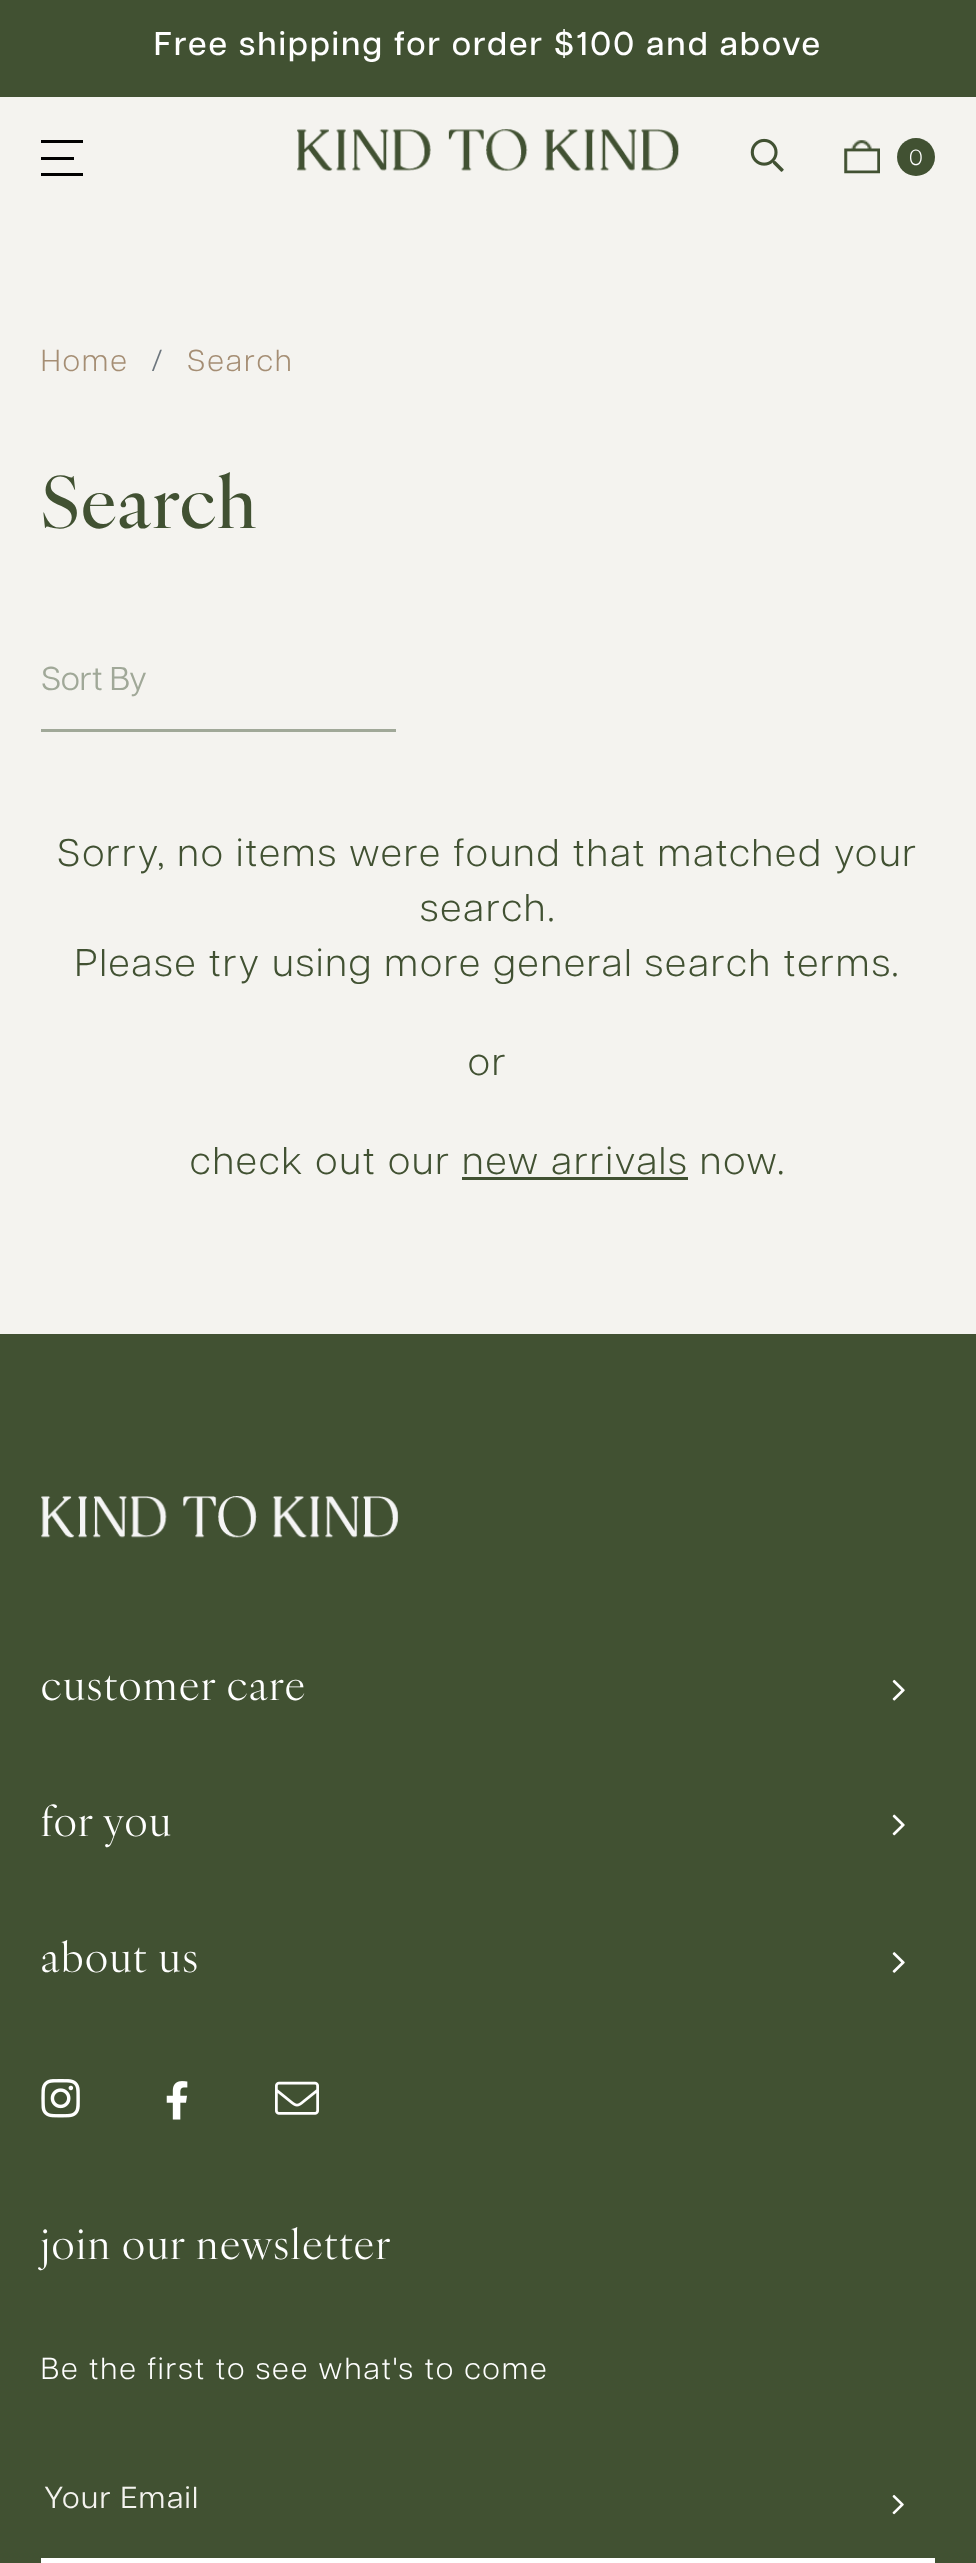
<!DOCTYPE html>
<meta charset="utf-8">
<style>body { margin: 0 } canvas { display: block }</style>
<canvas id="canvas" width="976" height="2563"></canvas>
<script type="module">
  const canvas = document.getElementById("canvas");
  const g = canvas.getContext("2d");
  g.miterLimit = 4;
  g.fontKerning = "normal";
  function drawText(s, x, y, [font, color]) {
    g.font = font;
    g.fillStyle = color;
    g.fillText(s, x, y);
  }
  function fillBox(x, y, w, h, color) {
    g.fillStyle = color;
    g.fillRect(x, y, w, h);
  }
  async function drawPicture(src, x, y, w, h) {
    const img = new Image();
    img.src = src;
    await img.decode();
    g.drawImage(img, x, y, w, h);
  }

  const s1 = ["500 33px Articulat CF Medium", "#FFFFFF"];
  const s2 = ["300 22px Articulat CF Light", "#FFFFFF"];
  const s3 = ["300 30.25px Articulat CF Light", "#A58E74"];
  const s4 = ["300 30.25px Articulat CF Light", "#6C757D"];
  const s5 = ["500 71.5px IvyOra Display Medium", "#415132"];
  const s6 = ["33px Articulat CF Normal", "#A0A898"];
  const s7 = ["300 38.5px Articulat CF Light", "#415132"];
  const s8 = ["41.25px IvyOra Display", "#FFFFFF"];
  const s9 = ["300 30.25px Articulat CF Light", "#FFFFFF"];
  const s10 = ["30.25px Articulat CF Normal", "#F4F3EF"];

  fillBox(0, 0, 976, 2563, "#F4F3EF");
  fillBox(0, 0, 976, 97, "#415132");
  g.letterSpacing = "2.3px";
  drawText("Free shipping for order $100 and above", 154, 55, s1);
  fillBox(41, 140, 42, 3, "#000000");
  fillBox(41, 157, 33, 3, "#000000");
  fillBox(41, 173, 42, 3, "#000000");
  await drawPicture("pic1.png", 297, 129, 382, 42);
  await drawPicture("pic2.png", 750, 138, 34, 34);
  await drawPicture("pic3.png", 844, 140, 36, 34);
  g.fillStyle = "#415132";
  g.beginPath();
  g.arc(916, 157, 19, 0, Math.PI * 2);
  g.fill();
  g.letterSpacing = "0px";
  drawText("0", 909, 165, s2);
  g.letterSpacing = "2.3px";
  drawText("Home", 41, 371, s3);
  drawText("/", 151, 371, s4);
  drawText("Search", 187, 371, s3);
  g.letterSpacing = "1.75px";
  drawText("Search", 41, 528, s5);
  fillBox(41, 729, 355, 3, "#A0A898");
  g.letterSpacing = "0px";
  drawText("Sort By", 41, 690, s6);
  g.letterSpacing = "2.3px";
  drawText("Sorry, no items were found that matched your", 57, 866, s7);
  drawText("search.", 420, 921, s7);
  drawText("Please try using more general search terms.", 75, 976, s7);
  drawText("or", 468, 1075, s7);
  drawText("check out our new arrivals now.", 190, 1174, s7);
  fillBox(462, 1177, 226, 3, "#415132");
  fillBox(0, 1334, 976, 1229, "#415132");
  await drawPicture("pic4.png", 41, 1496, 358, 42);
  g.letterSpacing = "2px";
  drawText("customer care", 41, 1700, s8);
  await drawPicture("pic5.png", 892, 1679, 13, 22);
  drawText("for you", 41, 1836, s8);
  await drawPicture("pic6.png", 892, 1814, 13, 22);
  drawText("about us", 41, 1972, s8);
  await drawPicture("pic7.png", 892, 1952, 13, 21);
  await drawPicture("pic8.png", 41, 2079, 39, 39);
  await drawPicture("pic9.png", 166, 2081, 22, 39);
  await drawPicture("pic10.png", 275, 2081, 44, 34);
  drawText("join our newsletter", 41, 2259, s8);
  g.letterSpacing = "2.3px";
  drawText("Be the first to see what's to come", 41, 2379, s9);
  fillBox(41, 2558, 894, 5, "#FFFFFF");
  g.letterSpacing = "1.75px";
  drawText("Your Email", 44, 2508, s10);
  await drawPicture("pic11.png", 892, 2494, 12, 21);
</script>
